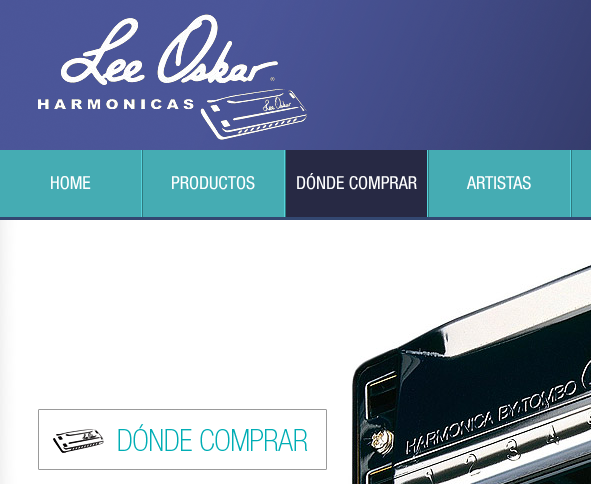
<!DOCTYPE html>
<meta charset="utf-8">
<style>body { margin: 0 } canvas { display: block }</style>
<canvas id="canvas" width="591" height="484"></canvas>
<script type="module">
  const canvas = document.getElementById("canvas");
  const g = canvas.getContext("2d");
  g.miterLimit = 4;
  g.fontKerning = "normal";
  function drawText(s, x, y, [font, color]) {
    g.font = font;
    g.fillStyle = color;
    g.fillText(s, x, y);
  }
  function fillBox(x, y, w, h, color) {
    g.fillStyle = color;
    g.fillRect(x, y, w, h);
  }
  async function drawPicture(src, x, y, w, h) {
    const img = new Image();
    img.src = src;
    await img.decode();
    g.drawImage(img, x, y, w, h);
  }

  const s1 = ["18px Helvetica Neue", "#FFFFFF"];

  fillBox(0, 0, 591, 484, "#334771");
  await drawPicture("pic1.png", 0, 0, 591, 150);
  await drawPicture("pic2.png", 38, 14, 269, 126);
  fillBox(0, 150, 591, 67, "#45ACB3");
  fillBox(141, 150, 1, 67, "#56D4DD");
  drawText("HOME", 50, 189, s1);
  fillBox(284, 150, 1, 67, "#56D4DD");
  fillBox(142, 150, 1, 67, "#2F7A7F");
  drawText("PRODUCTOS", 171, 189, s1);
  fillBox(427, 150, 1, 67, "#56D4DD");
  fillBox(285, 150, 1, 67, "#2F7A7F");
  fillBox(286, 150, 141, 67, "#272944");
  drawText("DÓNDE COMPRAR", 296, 189, s1);
  fillBox(570, 150, 1, 67, "#56D4DD");
  fillBox(428, 150, 1, 67, "#2F7A7F");
  drawText("ARTISTAS", 467, 189, s1);
  fillBox(571, 150, 1, 67, "#2F7A7F");
  await drawPicture("pic3.png", 0, 220, 591, 264);
  await drawPicture("pic4.png", 38, 409, 289, 61);
</script>
